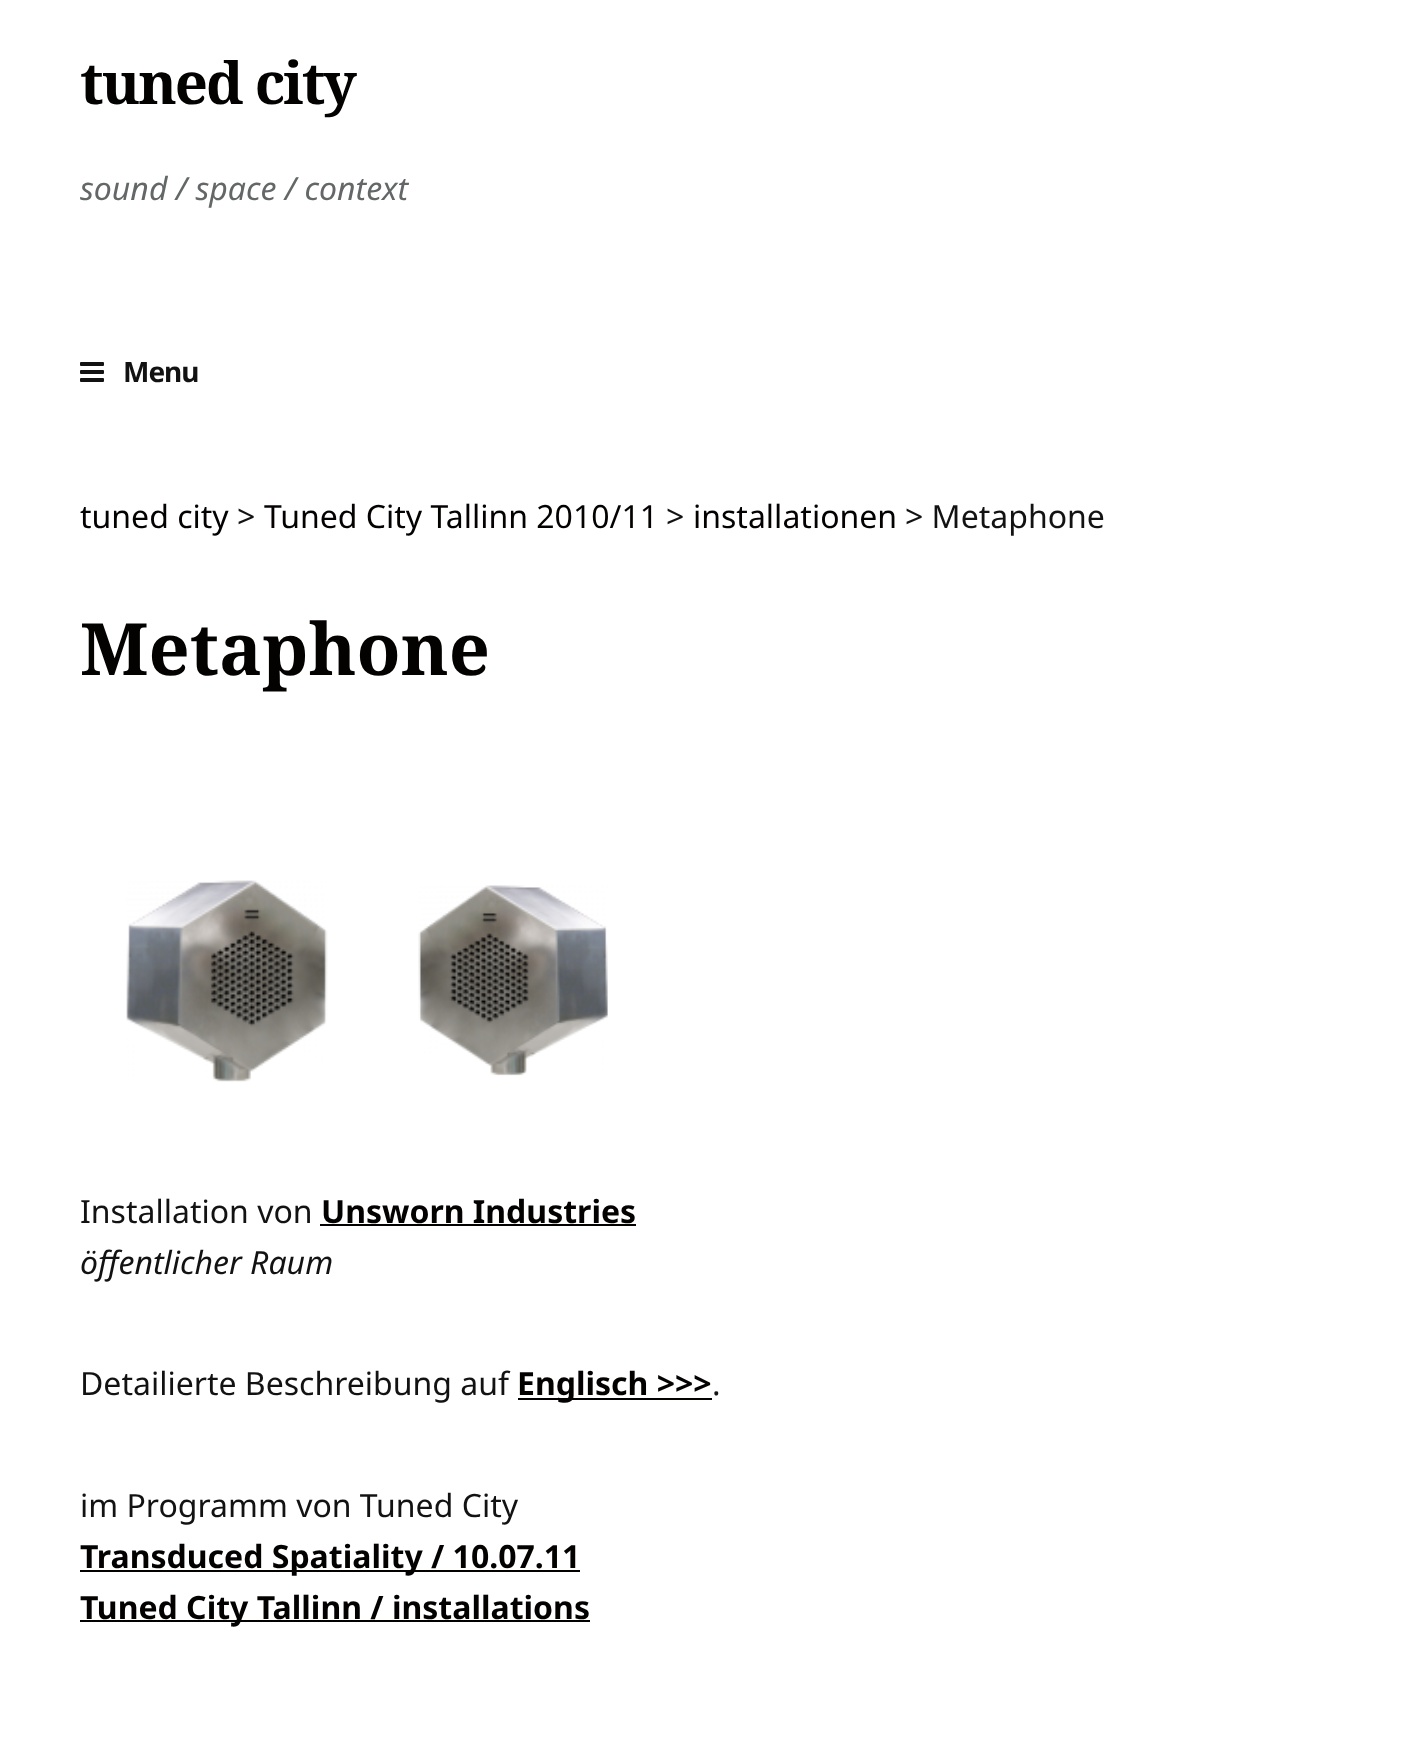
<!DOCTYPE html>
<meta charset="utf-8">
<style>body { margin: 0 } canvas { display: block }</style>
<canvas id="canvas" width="1424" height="1750"></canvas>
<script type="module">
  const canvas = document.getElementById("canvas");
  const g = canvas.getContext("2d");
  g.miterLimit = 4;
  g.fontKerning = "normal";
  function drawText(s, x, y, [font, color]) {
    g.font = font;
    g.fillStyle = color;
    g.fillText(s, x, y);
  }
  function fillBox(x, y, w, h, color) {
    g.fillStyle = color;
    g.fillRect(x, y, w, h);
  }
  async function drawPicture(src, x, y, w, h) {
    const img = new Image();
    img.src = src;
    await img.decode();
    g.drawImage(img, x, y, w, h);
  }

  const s1 = ["bold 58px Noto Serif", "#040101"];
  const s2 = ["italic 32px Noto Sans", "#646767"];
  const s3 = ["bold 28px Noto Sans", "#121212"];
  const s4 = ["32px Noto Sans", "#040101"];
  const s5 = ["32px Noto Sans", "#121212"];
  const s6 = ["bold 72px Noto Serif", "#040101"];
  const s7 = ["bold 32px Noto Sans", "#040101"];
  const s8 = ["italic 32px Noto Sans", "#121212"];

  fillBox(0, 0, 1424, 1750, "#FFFFFF");
  g.letterSpacing = "-2px";
  drawText("tuned city", 80, 104, s1);
  g.letterSpacing = "0px";
  drawText("sound / space / context", 80, 200, s2);
  await drawPicture("pic1.png", 80, 362, 24, 20);
  g.letterSpacing = "-1px";
  drawText("Menu", 123, 382, s3);
  g.letterSpacing = "0px";
  drawText("tuned city", 80, 528, s4);
  drawText(">", 237, 528, s5);
  drawText("Tuned City Tallinn 2010/11", 264, 528, s4);
  drawText(">", 666, 528, s5);
  drawText("installationen", 693, 528, s4);
  drawText("> Metaphone", 905, 528, s5);
  drawText("Metaphone", 80, 675, s6);
  await drawPicture("pic2.png", 126, 880, 202, 202);
  await drawPicture("pic3.png", 418, 885, 190, 191);
  drawText("Installation von", 80, 1223, s5);
  drawText("Unsworn Industries", 321, 1223, s7);
  fillBox(320, 1224, 316, 2, "#040101");
  drawText("öffentlicher Raum", 80, 1274, s8);
  drawText("Detailierte Beschreibung auf", 80, 1395, s5);
  fillBox(518, 1398, 194, 2, "#040101");
  drawText("Englisch >>>", 517, 1395, s7);
  drawText(".", 712, 1395, s5);
  drawText("im Programm von Tuned City", 80, 1517, s5);
  fillBox(80, 1570, 342, 2, "#040101");
  drawText("Transduced Spatiality / 10.07.11", 80, 1568, s7);
  fillBox(422, 1570, 158, 2, "#040101");
  fillBox(80, 1620, 510, 2, "#040101");
  drawText("Tuned City Tallinn / installations", 80, 1619, s7);
</script>
